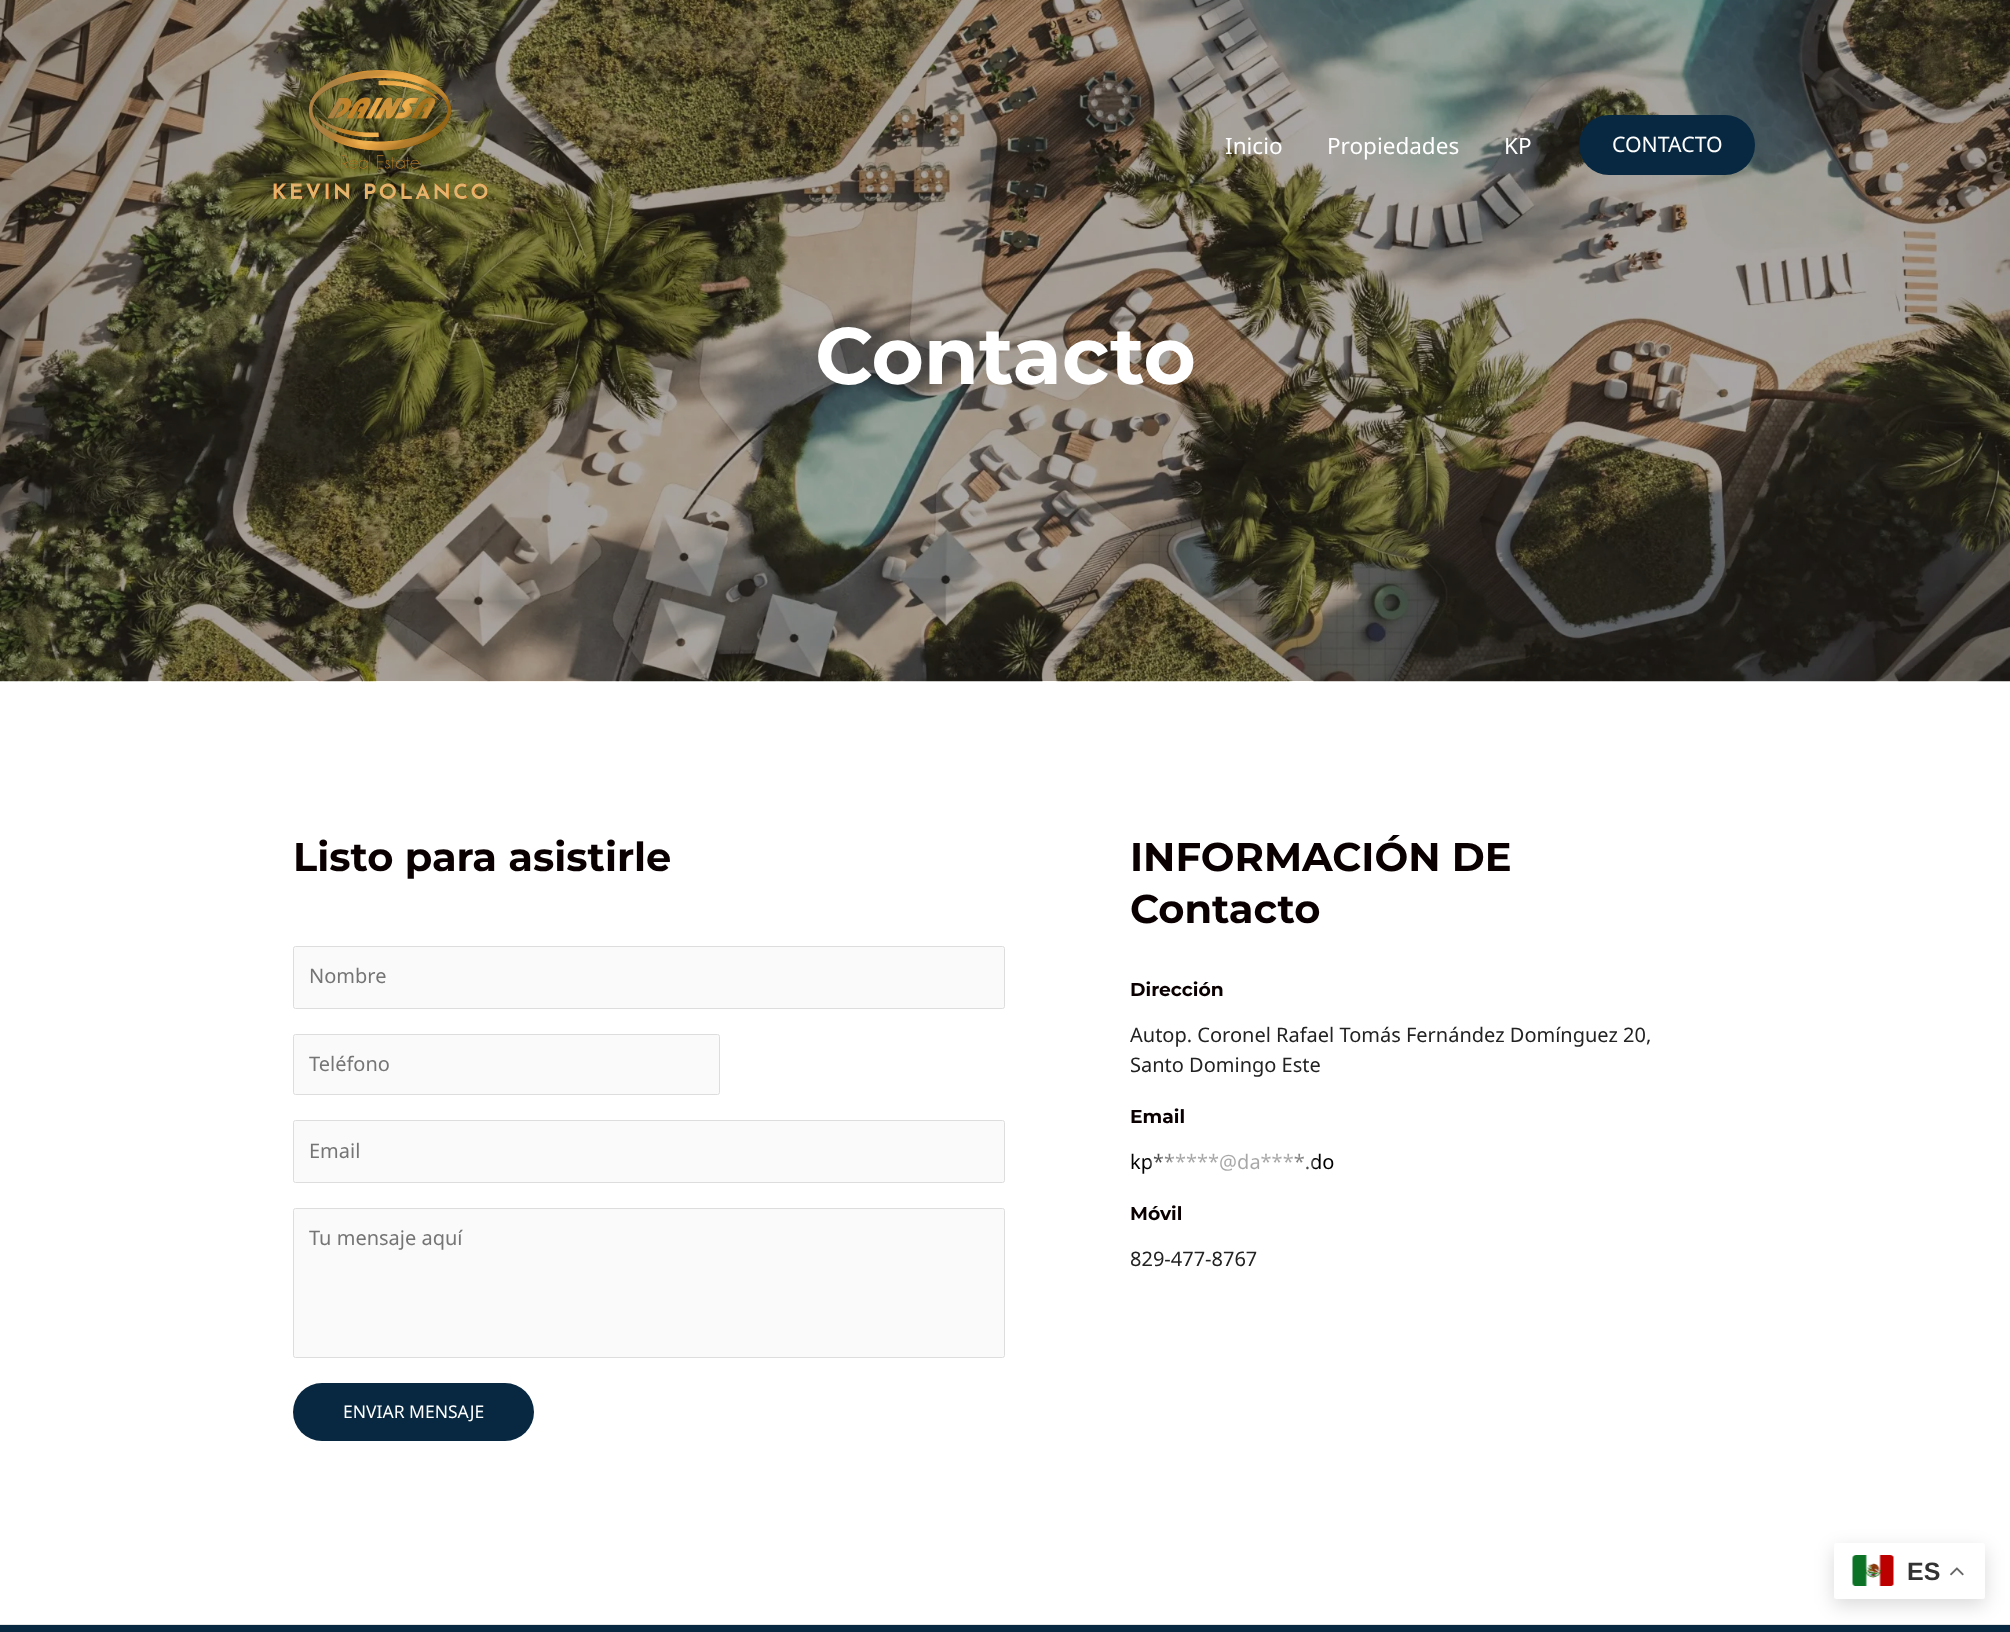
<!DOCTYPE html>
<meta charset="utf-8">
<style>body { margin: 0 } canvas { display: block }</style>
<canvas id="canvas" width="2010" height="1632"></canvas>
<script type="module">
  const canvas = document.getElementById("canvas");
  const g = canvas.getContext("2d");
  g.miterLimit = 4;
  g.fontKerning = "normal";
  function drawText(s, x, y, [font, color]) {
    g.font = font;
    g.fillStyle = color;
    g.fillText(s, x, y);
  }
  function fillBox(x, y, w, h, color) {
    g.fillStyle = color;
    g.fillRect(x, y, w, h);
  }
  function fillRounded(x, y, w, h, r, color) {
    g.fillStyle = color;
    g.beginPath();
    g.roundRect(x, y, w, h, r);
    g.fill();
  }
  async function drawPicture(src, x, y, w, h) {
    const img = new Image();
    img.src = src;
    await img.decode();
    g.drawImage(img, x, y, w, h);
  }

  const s1 = ["22.5px Noto Sans", "#FFFFFF"];
  const s2 = ["21.25px Noto Sans", "#FFFFFF"];
  const s3 = ["100 80px Montserrat", "#FFFFFF"];
  const s4 = ["100 40px Montserrat", "#0A0001"];
  const s5 = ["20px Noto Sans", "#757575"];
  const s6 = ["17.5px Noto Sans", "#FFFFFF"];
  const s7 = ["100 18.75px Montserrat", "#0A0001"];
  const s8 = ["20px Noto Sans", "#222222"];
  const s9 = ["20px Noto Sans", "#000000"];
  const s10 = ["bold 25px Liberation Sans", "#333333"];

  fillBox(0, 0, 2010, 1632, "#FFFFFF");
  await drawPicture("pic2.png", 0, 0, 2010, 682);
  await drawPicture("pic1.png", 273, 69, 215, 131);
  drawText("Inicio", 1225, 154, s1);
  drawText("Propiedades", 1327, 154, s1);
  drawText("KP", 1504, 154, s1);
  fillRounded(1579, 115, 176, 60, 30, "#072840");
  drawText("CONTACTO", 1612, 152, s2);
  drawText("Contacto", 815, 384, s3);
  drawText("Listo para asistirle", 293, 871, s4);
  g.fillStyle = "#FAFAFA";
  g.beginPath();
  g.roundRect(293.5, 946.5, 711, 62, 2);
  g.fill();
  g.strokeStyle = "#DDDDDD";
  g.stroke();
  drawText("Nombre", 309, 983, s5);
  g.fillStyle = "#FAFAFA";
  g.beginPath();
  g.roundRect(293.5, 1034.5, 426, 60, 2);
  g.fill();
  g.stroke();
  drawText("Teléfono", 309, 1071, s5);
  g.fillStyle = "#FAFAFA";
  g.beginPath();
  g.roundRect(293.5, 1120.5, 711, 62, 2);
  g.fill();
  g.stroke();
  drawText("Email", 309, 1158, s5);
  g.fillStyle = "#FAFAFA";
  g.beginPath();
  g.roundRect(293.5, 1208.5, 711, 149, 2);
  g.fill();
  g.stroke();
  drawText("Tu mensaje aquí", 309, 1245, s5);
  fillRounded(293, 1383, 241, 58, 29, "#072840");
  drawText("ENVIAR MENSAJE", 343, 1418, s6);
  drawText("INFORMACIÓN DE", 1130, 871, s4);
  drawText("Contacto", 1130, 923, s4);
  drawText("Dirección", 1130, 996, s7);
  drawText("Autop. Coronel Rafael Tomás Fernández Domínguez 20,", 1130, 1042, s8);
  drawText("Santo Domingo Este", 1130, 1072, s8);
  drawText("Email", 1130, 1123, s7);
  drawText("kp******@da****.do", 1130, 1169, s9);
  fillRounded(1150, 1148, 164, 30, 15, "rgba(255, 255, 255, 0.3)");
  fillBox(1161, 1153, 143, 18, "rgba(255, 255, 255, 0.3)");
  fillBox(1171, 1153, 122, 18, "rgba(255, 255, 255, 0.3)");
  drawText("Móvil", 1130, 1220, s7);
  drawText("829-477-8767", 1130, 1266, s8);
  fillBox(0, 1625, 2010, 7, "#072840");
  fillBox(0, 1624, 2010, 1, "#E6E6E6");
  g.fillStyle = "rgba(0, 0, 0, 0.15)";
  g.filter = "blur(9.5px)";
  g.beginPath();
  g.roundRect(1834, 1549, 151, 56, 2.5);
  g.fill();
  g.filter = "none";
  fillRounded(1834, 1543, 151, 56, 2.5, "#FFFFFF");
  await drawPicture("pic3.png", 1852, 1555, 42, 31);
  drawText("ES", 1907, 1580, s10);
  await drawPicture("pic4.png", 1950, 1567, 14, 9);
</script>
